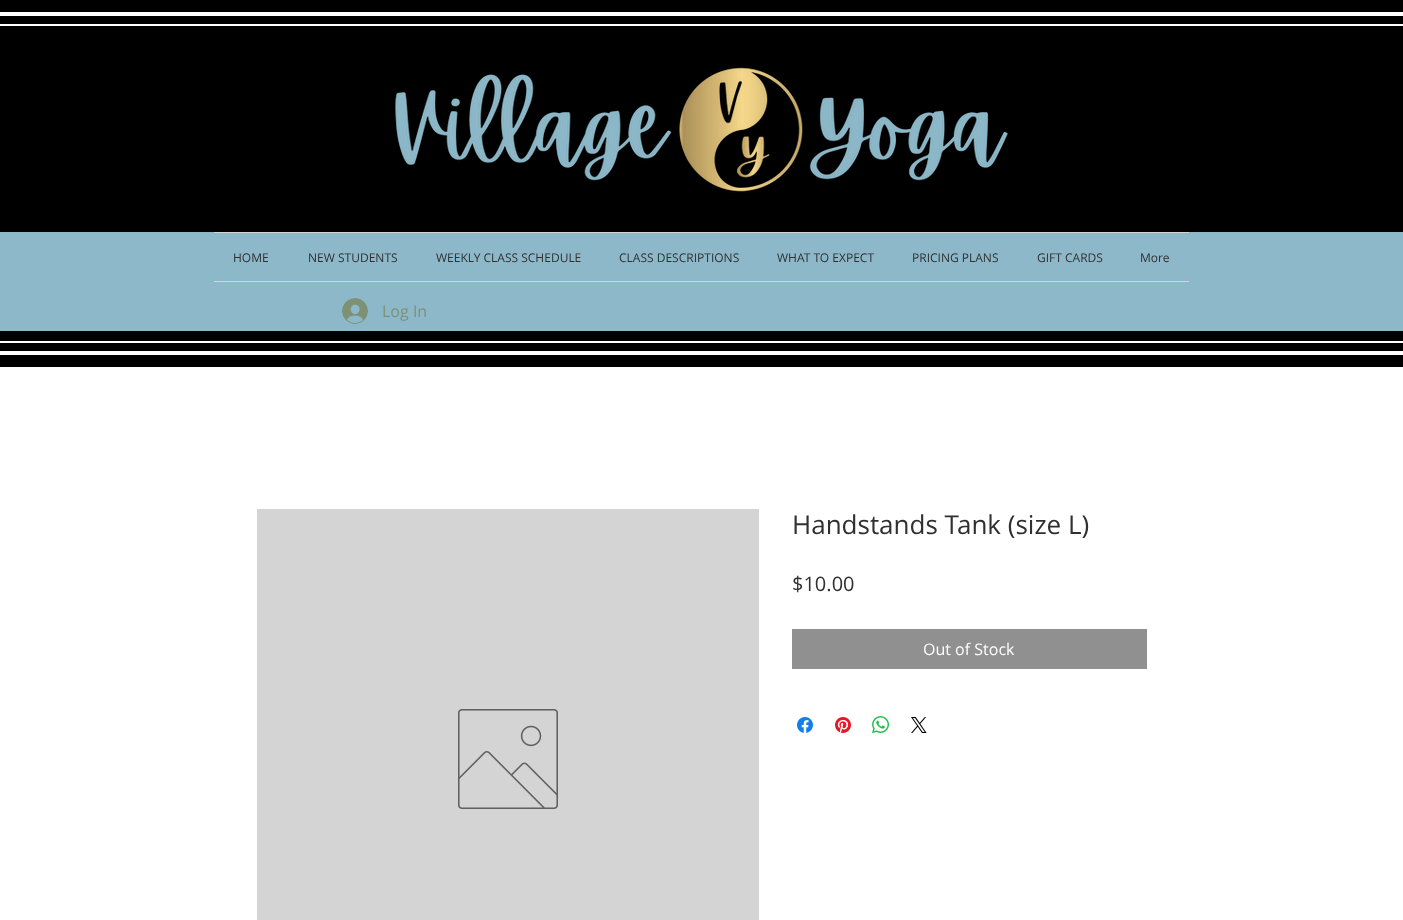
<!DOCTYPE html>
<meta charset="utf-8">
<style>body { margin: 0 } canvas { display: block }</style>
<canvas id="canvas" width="1403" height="920"></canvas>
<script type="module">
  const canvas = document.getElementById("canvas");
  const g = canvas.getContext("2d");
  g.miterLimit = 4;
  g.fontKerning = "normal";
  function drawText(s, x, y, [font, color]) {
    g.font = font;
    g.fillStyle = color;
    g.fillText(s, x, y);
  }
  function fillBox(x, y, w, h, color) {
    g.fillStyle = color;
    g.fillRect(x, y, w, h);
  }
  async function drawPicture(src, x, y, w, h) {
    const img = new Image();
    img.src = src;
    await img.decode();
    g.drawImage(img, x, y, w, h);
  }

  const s1 = ["12px Open Sans", "#303030"];
  const s2 = ["16px Open Sans", "#7D9174"];
  const s3 = ["26px Open Sans", "#303030"];
  const s4 = ["20px Open Sans", "#303030"];
  const s5 = ["16px Open Sans", "#FFFFFF"];

  fillBox(0, 0, 1403, 920, "#FFFFFF");
  fillBox(0, 0, 1403, 367, "#000000");
  fillBox(0, 12, 1403, 4, "#FFFFFF");
  fillBox(0, 351, 1403, 4, "#FFFFFF");
  fillBox(0, 24, 1403, 2, "#FFFFFF");
  fillBox(0, 341, 1403, 2, "#FFFFFF");
  await drawPicture("pic1.png", 393, 66, 615, 127);
  fillBox(0, 232, 1403, 99, "#8DB8C9");
  fillBox(214, 232, 975, 1, "#D4D4D4");
  fillBox(214, 281, 975, 1, "#D4D4D4");
  drawText("HOME", 233, 262, s1);
  drawText("NEW STUDENTS", 308, 262, s1);
  drawText("WEEKLY CLASS SCHEDULE", 436, 262, s1);
  drawText("CLASS DESCRIPTIONS", 619, 262, s1);
  drawText("WHAT TO EXPECT", 777, 262, s1);
  drawText("PRICING PLANS", 912, 262, s1);
  drawText("GIFT CARDS", 1037, 262, s1);
  drawText("More", 1140, 262, s1);
  await drawPicture("pic2.png", 342, 298, 26, 26);
  drawText("Log In", 382, 317, s2);
  g.strokeStyle = "#D4D4D4";
  g.strokeRect(257.5, 509.5, 501, 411);
  fillBox(258, 510, 500, 410, "#D4D4D4");
  await drawPicture("pic3.png", 458, 709, 100, 100);
  drawText("Handstands Tank (size L)", 792, 534, s3);
  drawText("$10.00", 792, 591, s4);
  fillBox(792, 629, 355, 40, "#909090");
  drawText("Out of Stock", 923, 655, s5);
  await drawPicture("pic4.png", 797, 717, 16, 16);
  await drawPicture("pic5.png", 835, 717, 16, 16);
  await drawPicture("pic6.png", 872, 716, 17, 17);
  await drawPicture("pic7.png", 911, 717, 16, 16);
</script>
